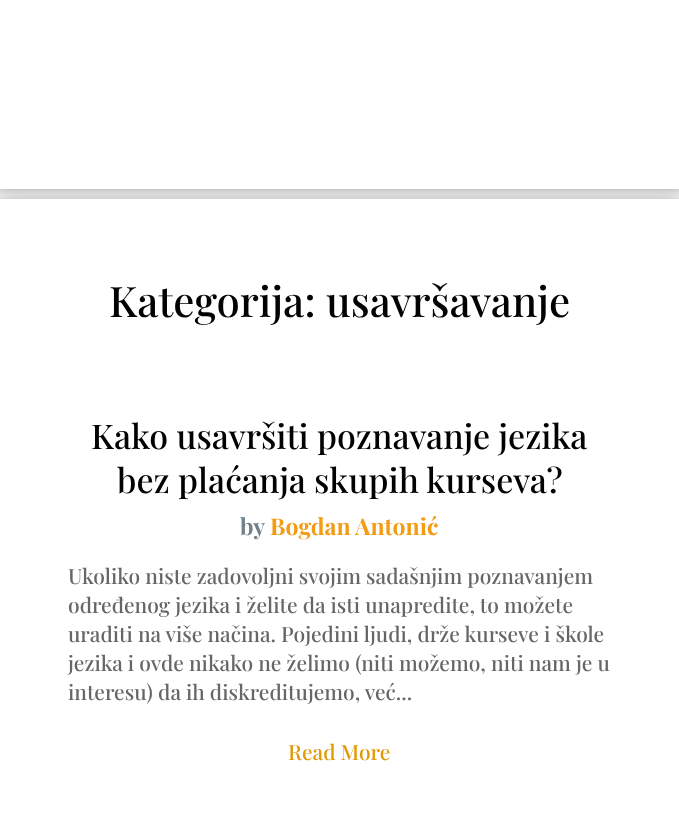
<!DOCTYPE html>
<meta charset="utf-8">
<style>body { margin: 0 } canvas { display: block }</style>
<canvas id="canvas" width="679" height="826"></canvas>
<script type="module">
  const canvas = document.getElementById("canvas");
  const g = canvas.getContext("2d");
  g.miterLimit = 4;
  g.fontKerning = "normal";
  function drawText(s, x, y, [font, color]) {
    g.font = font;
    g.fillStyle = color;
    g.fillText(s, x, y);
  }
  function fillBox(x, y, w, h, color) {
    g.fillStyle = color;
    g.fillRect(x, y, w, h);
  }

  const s1 = ["500 42px Playfair Display", "#020202"];
  const s2 = ["500 34px Playfair Display", "#020202"];
  const s3 = ["bold 23px Playfair Display", "#71818C"];
  const s4 = ["bold 23px Playfair Display", "#F39C12"];
  const s5 = ["500 21px Playfair Display", "#666666"];
  const s6 = ["500 21px Playfair Display", "#E09900"];

  fillBox(0, 0, 679, 826, "#EFEFEF");
  fillBox(0, 199, 679, 627, "#FFFFFF");
  g.fillStyle = "rgba(0, 0, 0, 0.24)";
  g.filter = "blur(3px)";
  g.beginPath();
  g.rect(-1, -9, 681, 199);
  g.fill();
  g.filter = "none";
  g.save();
  g.beginPath();
  g.rect(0, 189, 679, 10);
  g.clip();
  g.fillStyle = "rgba(0, 0, 0, 0.3)";
  g.filter = "blur(9px)";
  g.beginPath();
  g.rect(0, 201, 679, 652);
  g.fill();
  g.filter = "none";
  g.restore();
  fillBox(0, 0, 679, 189, "#FFFFFF");
  drawText("Kategorija: usavršavanje", 109, 317, s1);
  drawText("Kako usavršiti poznavanje jezika", 91, 449, s2);
  drawText("bez plaćanja skupih kurseva?", 117, 493, s2);
  drawText("by", 240, 535, s3);
  drawText("Bogdan Antonić", 270, 535, s4);
  drawText("Ukoliko niste zadovoljni svojim sadašnjim poznavanjem", 68, 584, s5);
  drawText("određenog jezika i želite da isti unapredite, to možete", 68, 613, s5);
  drawText("uraditi na više načina. Pojedini ljudi, drže kurseve i škole", 68, 642, s5);
  drawText("jezika i ovde nikako ne želimo (niti možemo, niti nam je u", 68, 671, s5);
  drawText("interesu) da ih diskreditujemo, već...", 68, 700, s5);
  drawText("Read More", 288, 760, s6);
</script>
